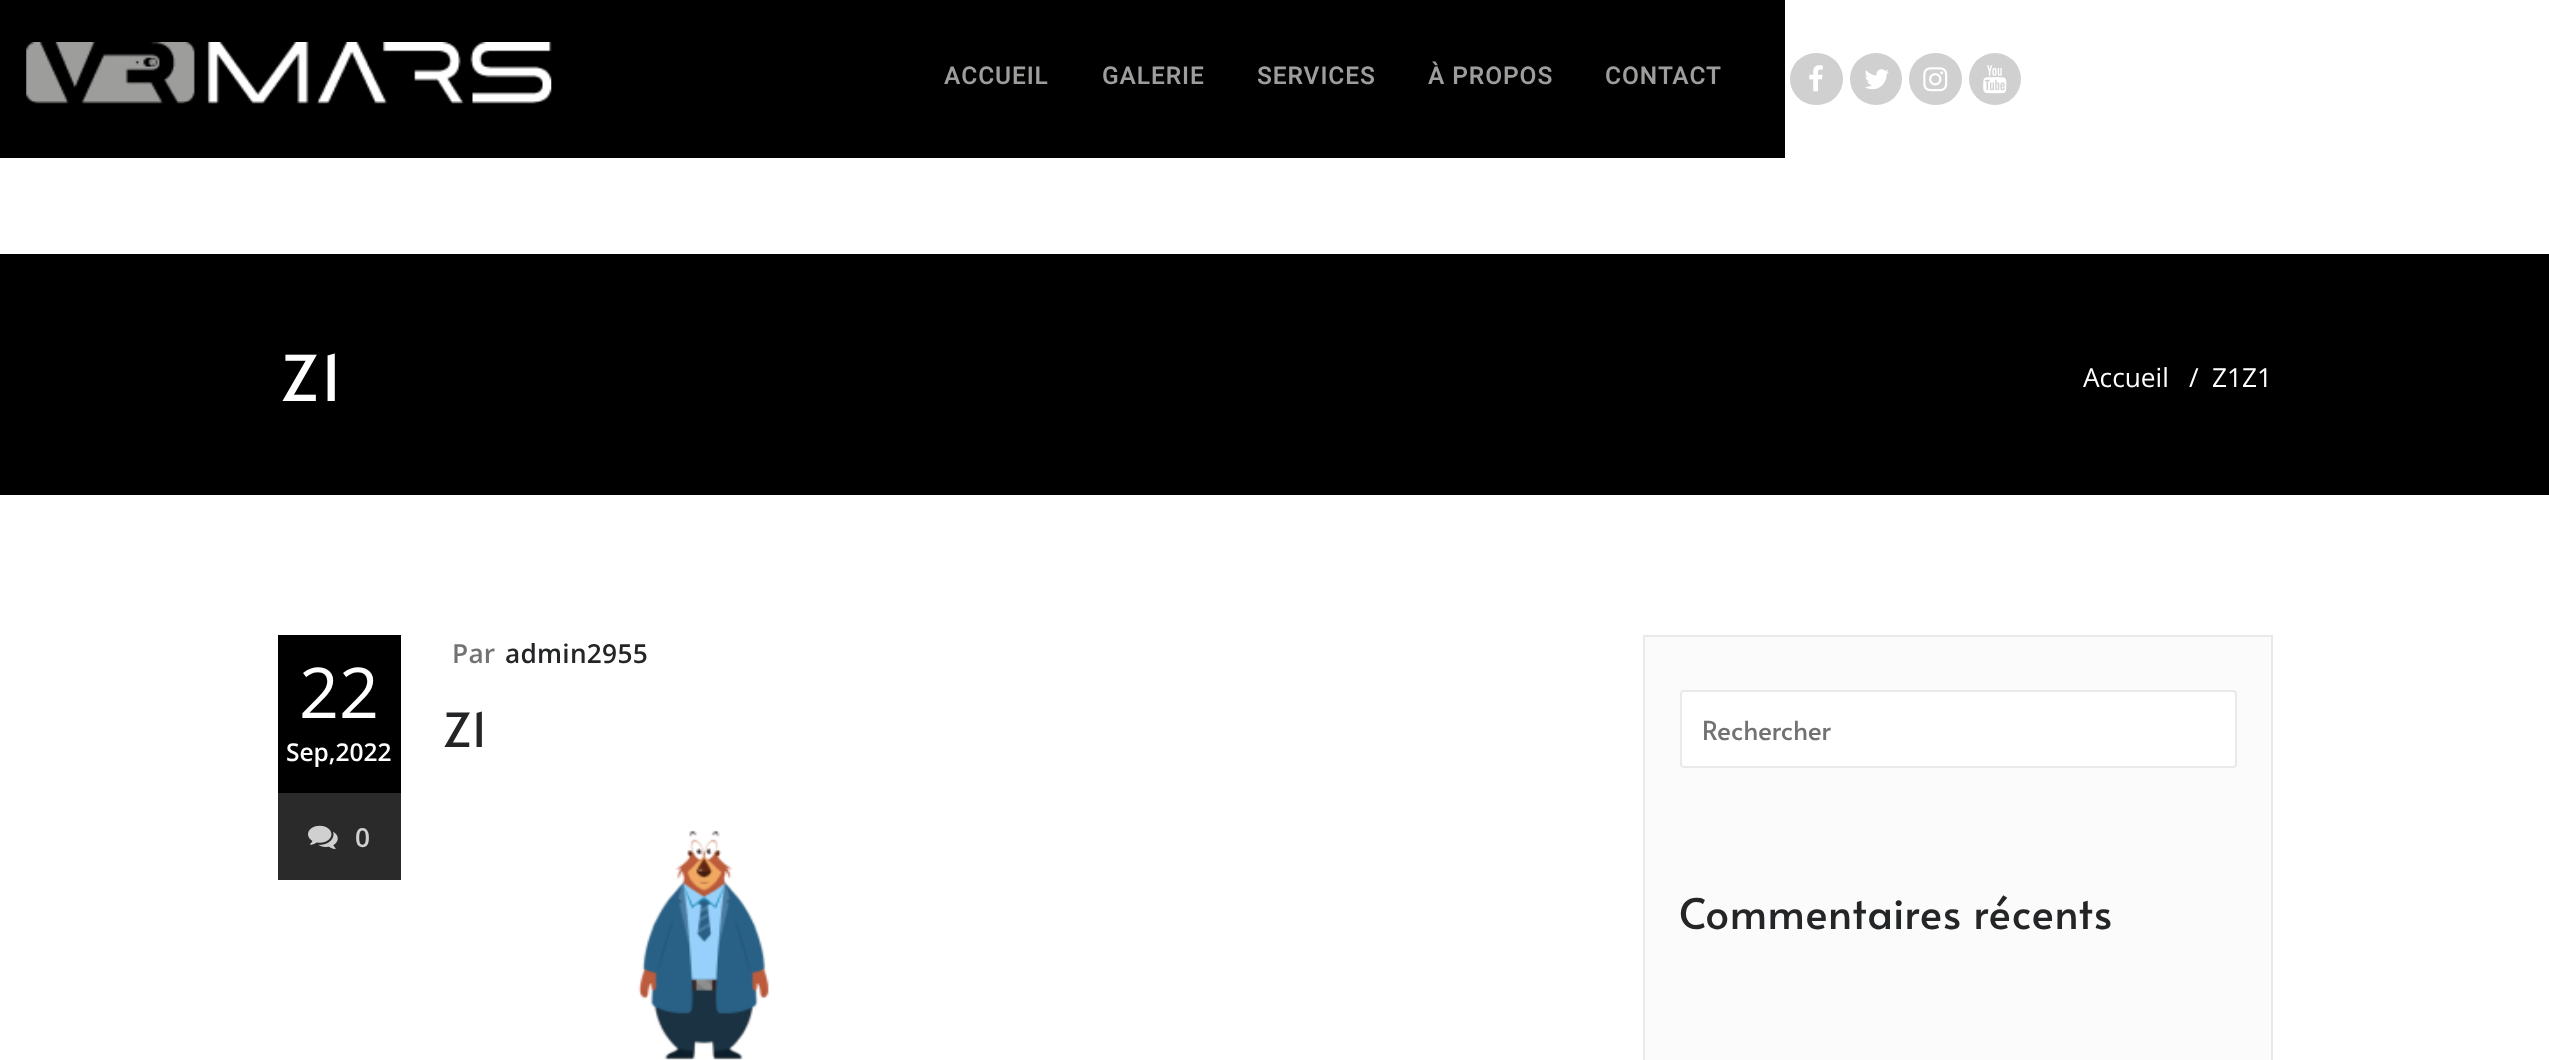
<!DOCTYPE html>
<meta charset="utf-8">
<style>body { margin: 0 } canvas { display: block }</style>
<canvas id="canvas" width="2549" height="1060"></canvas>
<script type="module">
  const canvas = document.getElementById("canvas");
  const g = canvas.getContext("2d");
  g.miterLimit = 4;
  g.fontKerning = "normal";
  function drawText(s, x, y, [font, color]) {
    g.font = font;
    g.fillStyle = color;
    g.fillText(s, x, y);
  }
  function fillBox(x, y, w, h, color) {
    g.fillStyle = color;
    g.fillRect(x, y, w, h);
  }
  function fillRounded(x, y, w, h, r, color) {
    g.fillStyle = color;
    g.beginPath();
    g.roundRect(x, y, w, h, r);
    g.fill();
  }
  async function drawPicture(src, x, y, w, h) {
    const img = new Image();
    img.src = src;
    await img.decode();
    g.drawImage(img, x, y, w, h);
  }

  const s1 = ["600 24.5px Heebo", "#9D9D9C"];
  const s2 = ["63px Alata", "#FFFFFF"];
  const s3 = ["26.25px Open Sans", "#FFFFFF"];
  const s4 = ["70px Open Sans", "#FFFFFF"];
  const s5 = ["600 24.5px Open Sans", "#FFFFFF"];
  const s6 = ["600 26.25px Open Sans", "#D0D0D0"];
  const s7 = ["600 26.25px Open Sans", "#727272"];
  const s8 = ["600 26.25px Open Sans", "#242526"];
  const s9 = ["47px Alata", "#242526"];
  const s10 = ["26.25px Alata", "#727272"];
  const s11 = ["42px Alata", "#242526"];

  fillBox(0, 0, 2549, 1060, "#FFFFFF");
  fillBox(0, 0, 1785, 158, "#000000");
  await drawPicture("pic1.png", 26, 42, 526, 62);
  g.letterSpacing = "0.9px";
  drawText("ACCUEIL", 944, 84, s1);
  drawText("GALERIE", 1102, 84, s1);
  drawText("SERVICES", 1257, 84, s1);
  drawText("À PROPOS", 1428, 84, s1);
  drawText("CONTACT", 1605, 84, s1);
  fillRounded(1790, 53, 53, 52, 26, "#D0D0D0");
  await drawPicture("pic2.png", 1809, 65, 14, 27);
  g.beginPath();
  g.arc(1876, 79, 26, 0, Math.PI * 2);
  g.fill();
  await drawPicture("pic3.png", 1865, 69, 24, 21);
  fillRounded(1909, 53, 53, 52, 26, "#D0D0D0");
  await drawPicture("pic4.png", 1923, 67, 25, 25);
  g.beginPath();
  g.arc(1995, 79, 26, 0, Math.PI * 2);
  g.fill();
  await drawPicture("pic5.png", 1983, 65, 24, 29);
  fillBox(0, 254, 2549, 241, "#000000");
  g.letterSpacing = "2px";
  drawText("Z1", 282, 401, s2);
  g.letterSpacing = "0px";
  drawText("Accueil", 2083, 387, s3);
  drawText("/", 2189, 387, s3);
  drawText("Z1Z1", 2212, 387, s3);
  fillBox(278, 635, 123, 158, "#000000");
  drawText("22", 299, 718, s4);
  drawText("Sep,2022", 286, 761, s5);
  fillBox(278, 793, 123, 87, "#2A2A2A");
  await drawPicture("pic6.png", 308, 825, 30, 25);
  drawText("0", 355, 847, s6);
  g.letterSpacing = "0.25px";
  drawText("Par", 452, 663, s7);
  drawText("admin2955", 505, 663, s8);
  g.letterSpacing = "0px";
  drawText("Z1", 444, 747, s9);
  await drawPicture("pic7.png", 638, 830, 131, 230);
  g.fillStyle = "#FBFBFB";
  g.beginPath();
  g.rect(1644, 636, 628, 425);
  g.fill();
  g.strokeStyle = "#E9E9E9";
  g.lineWidth = 2;
  g.stroke();
  g.fillStyle = "#FFFFFF";
  g.beginPath();
  g.roundRect(1681, 691, 555, 76, 3);
  g.fill();
  g.stroke();
  drawText("Rechercher", 1702, 740, s10);
  g.letterSpacing = "0.9px";
  drawText("Commentaires récents", 1679, 929, s11);
</script>
